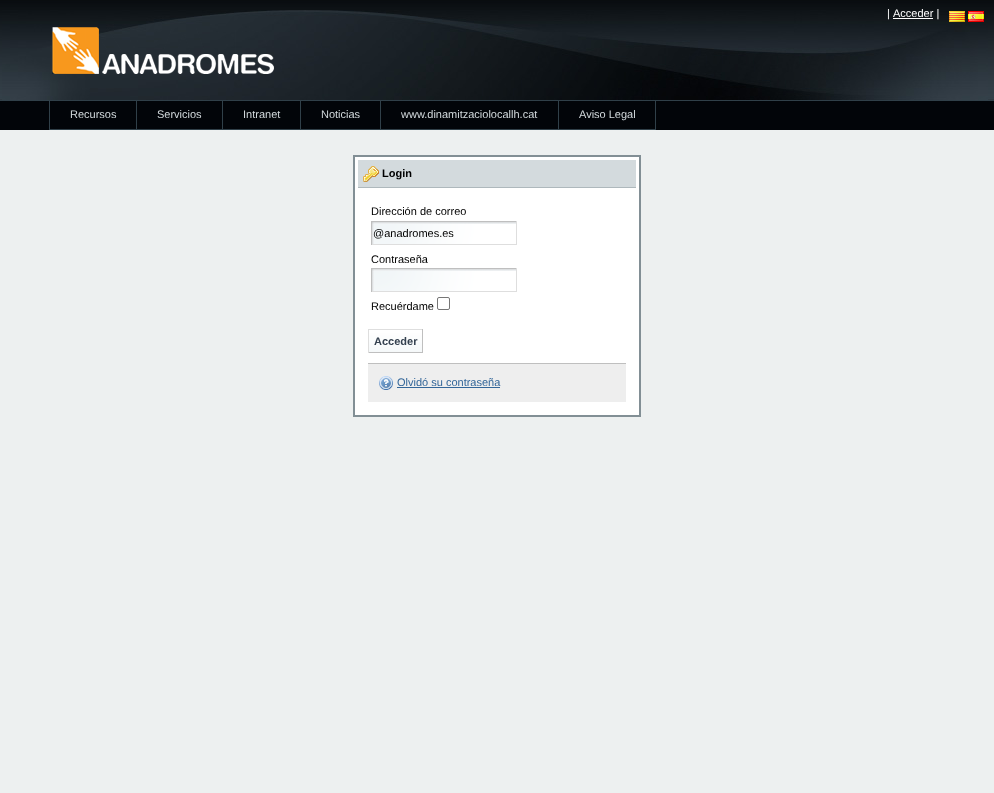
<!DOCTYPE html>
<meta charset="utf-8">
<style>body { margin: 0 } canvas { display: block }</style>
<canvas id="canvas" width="994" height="793"></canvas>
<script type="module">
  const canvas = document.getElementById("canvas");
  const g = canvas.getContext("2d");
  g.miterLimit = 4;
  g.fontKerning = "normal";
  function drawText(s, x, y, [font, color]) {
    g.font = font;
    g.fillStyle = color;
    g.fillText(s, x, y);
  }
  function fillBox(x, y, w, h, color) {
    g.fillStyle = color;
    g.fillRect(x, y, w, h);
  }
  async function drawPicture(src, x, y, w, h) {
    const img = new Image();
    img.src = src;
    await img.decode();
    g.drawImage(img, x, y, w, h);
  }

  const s1 = ["11px Liberation Sans", "#FFFFFF"];
  const s2 = ["11px Liberation Sans", "#D3DADD"];
  const s3 = ["bold 11px Liberation Sans", "#000000"];
  const s4 = ["11px Liberation Sans", "#000000"];
  const s5 = ["bold 11px Liberation Sans", "#34404F"];
  const s6 = ["11px Liberation Sans", "#336699"];

  fillBox(0, 0, 994, 793, "#EDF0F0");
  await drawPicture("pic1.png", 0, 0, 994, 100);
  await drawPicture("pic2.png", 2, 10, 986, 90);
  drawText("|", 887, 17, s1);
  fillBox(893, 18, 40, 1, "#FFFFFF");
  drawText("Acceder |", 893, 17, s1);
  await drawPicture("pic3.png", 949, 11, 16, 11);
  await drawPicture("pic4.png", 968, 11, 16, 11);
  await drawPicture("pic5.png", 52, 27, 222, 47);
  fillBox(0, 101, 994, 29, "#020509");
  fillBox(0, 100, 994, 1, "#304049");
  g.strokeStyle = "#304049";
  g.strokeRect(49.5, 100.5, 87, 29);
  drawText("Recursos", 70, 118, s2);
  g.strokeRect(136.5, 100.5, 86, 29);
  drawText("Servicios", 157, 118, s2);
  g.strokeRect(222.5, 100.5, 78, 29);
  drawText("Intranet", 243, 118, s2);
  g.strokeRect(300.5, 100.5, 80, 29);
  drawText("Noticias", 321, 118, s2);
  g.strokeRect(380.5, 100.5, 178, 29);
  drawText("www.dinamitzaciolocallh.cat", 401, 118, s2);
  g.strokeRect(558.5, 100.5, 97, 29);
  drawText("Aviso Legal", 579, 118, s2);
  g.fillStyle = "#FFFFFF";
  g.beginPath();
  g.rect(354, 156, 286, 260);
  g.fill();
  g.strokeStyle = "#828F95";
  g.lineWidth = 2;
  g.stroke();
  fillBox(358, 160, 278, 27, "#D3DADD");
  fillBox(358, 187, 278, 1, "#AEB8BC");
  await drawPicture("pic6.png", 363, 166, 16, 16);
  drawText("Login", 382, 177, s3);
  drawText("Dirección de correo", 371, 215, s4);
  await drawPicture("pic7.png", 372, 222, 144, 22);
  fillBox(371, 221, 146, 1, "#BFBFBF");
  fillBox(516, 221, 1, 24, "#DEDEDE");
  fillBox(371, 244, 146, 1, "#DEDEDE");
  fillBox(371, 221, 1, 24, "#BFBFBF");
  drawText("@anadromes.es", 373, 237, s4);
  drawText("Contraseña", 371, 263, s4);
  await drawPicture("pic7.png", 372, 269, 144, 22);
  fillBox(371, 268, 146, 1, "#BFBFBF");
  fillBox(516, 268, 1, 24, "#DEDEDE");
  fillBox(371, 291, 146, 1, "#DEDEDE");
  fillBox(371, 268, 1, 24, "#BFBFBF");
  drawText("Recuérdame", 371, 310, s4);
  g.beginPath();
  g.roundRect(437.5, 297.5, 12, 12, 1.5);
  g.strokeStyle = "#767676";
  g.lineWidth = 1;
  g.stroke();
  await drawPicture("pic8.png", 369, 330, 53, 22);
  fillBox(368, 329, 55, 1, "#DEDEDE");
  fillBox(422, 329, 1, 24, "#BFBFBF");
  fillBox(368, 352, 55, 1, "#BFBFBF");
  fillBox(368, 329, 1, 24, "#DEDEDE");
  drawText("Acceder", 374, 345, s5);
  fillBox(368, 364, 258, 38, "#EEEEEE");
  fillBox(368, 363, 258, 1, "#BFBFBF");
  await drawPicture("pic9.png", 379, 376, 14, 14);
  drawText("Olvidó su contraseña", 397, 386, s6);
  fillBox(397, 387, 103, 1, "#336699");
</script>
